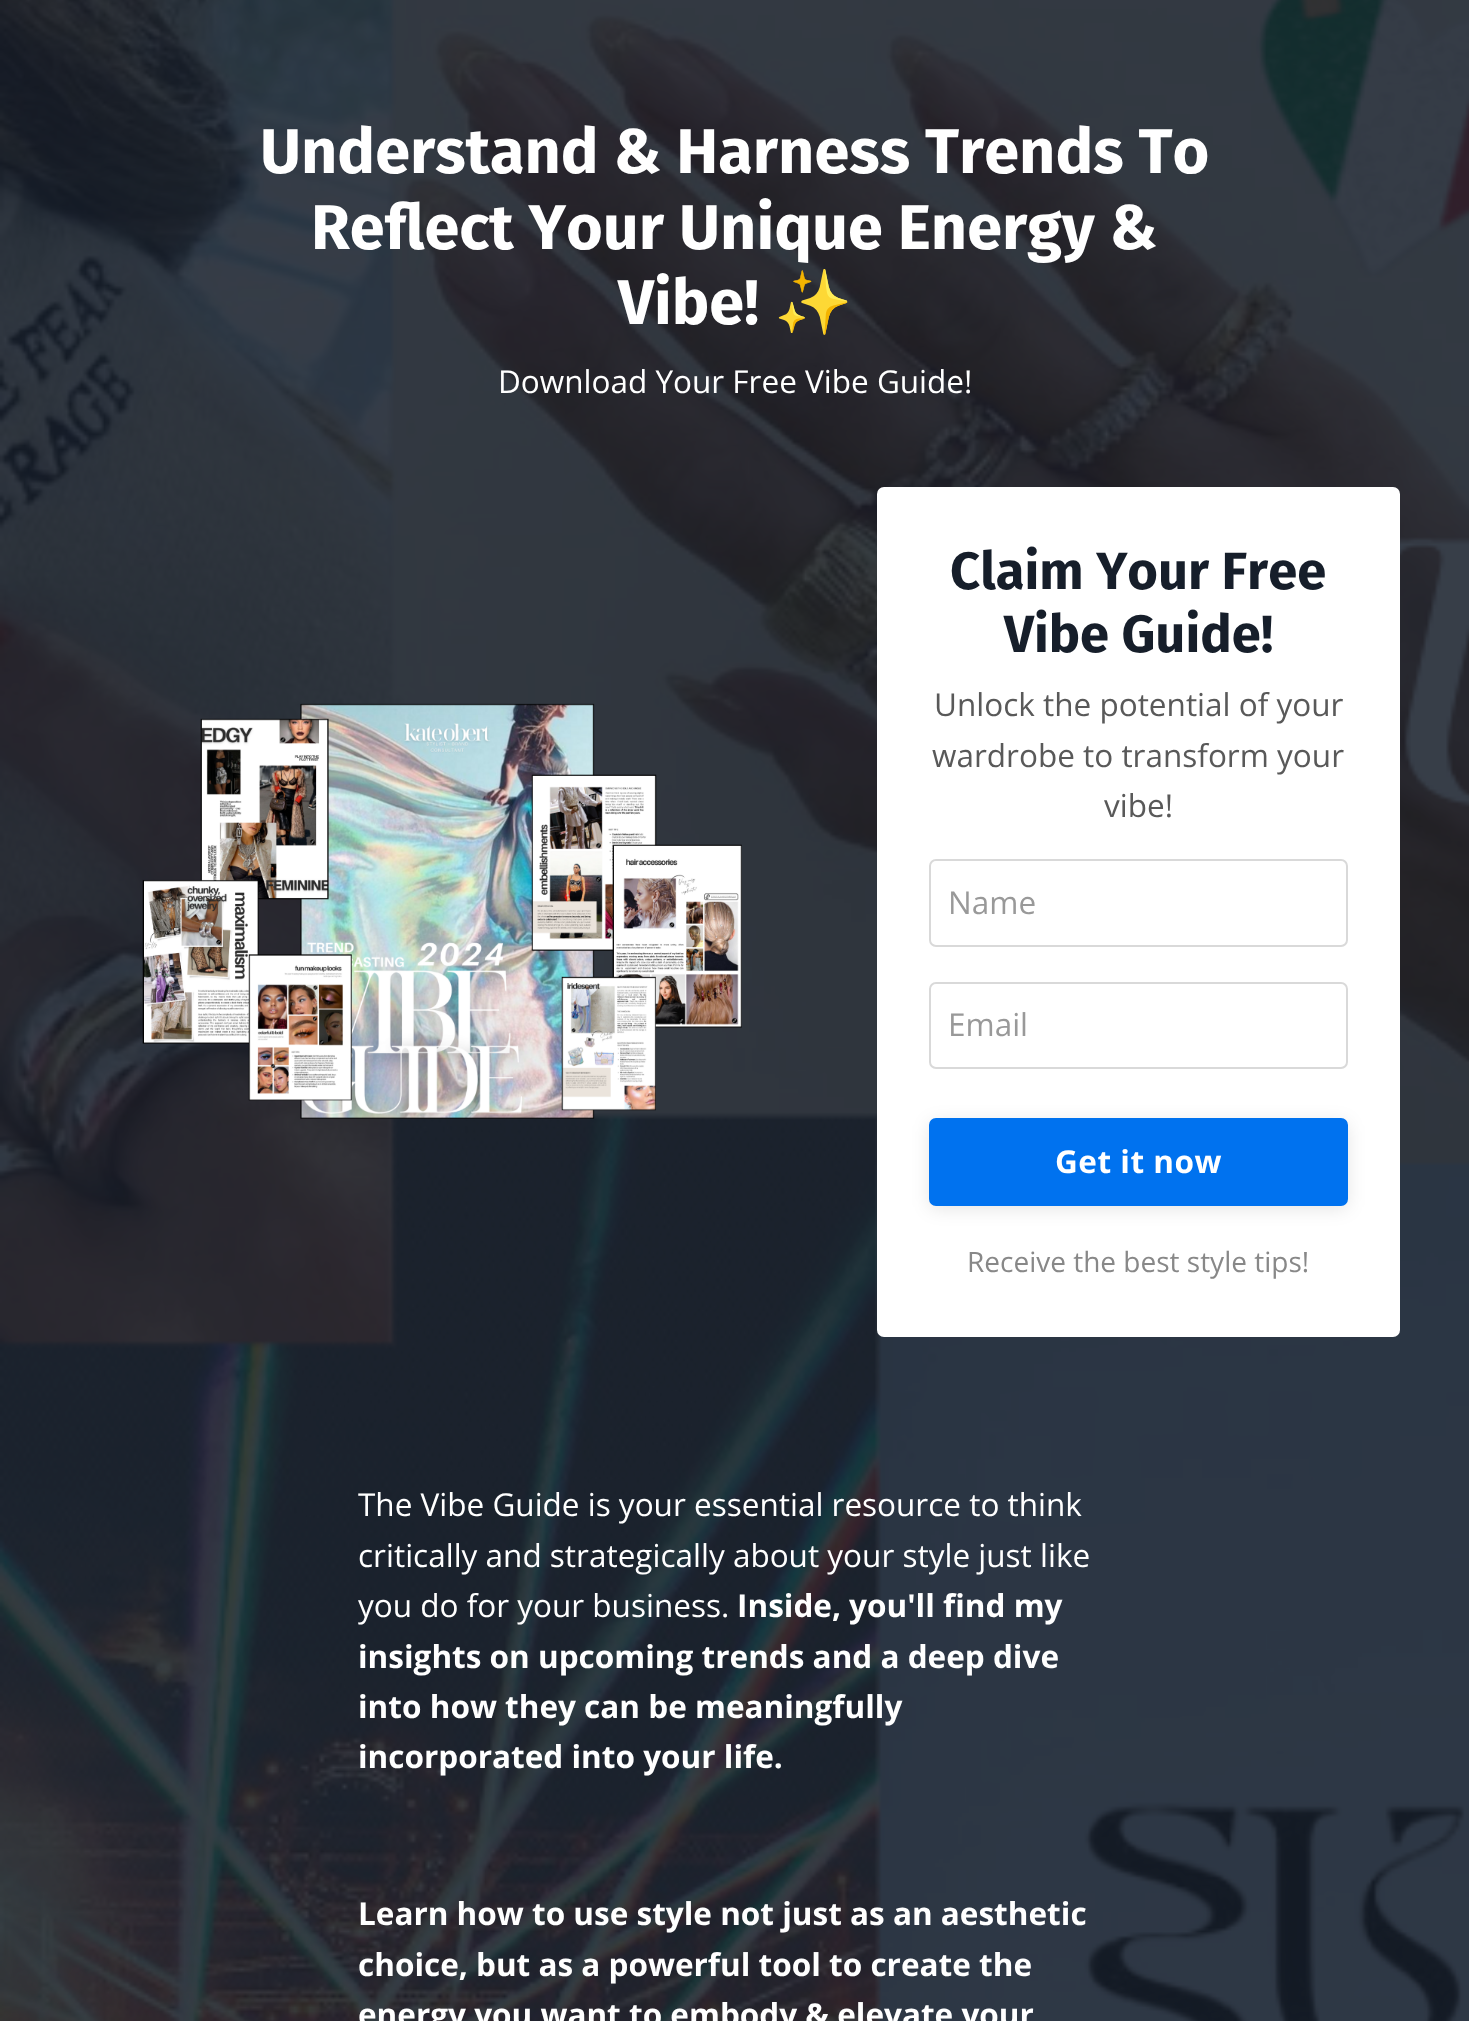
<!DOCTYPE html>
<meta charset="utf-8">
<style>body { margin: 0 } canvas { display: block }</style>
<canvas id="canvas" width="1469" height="2021"></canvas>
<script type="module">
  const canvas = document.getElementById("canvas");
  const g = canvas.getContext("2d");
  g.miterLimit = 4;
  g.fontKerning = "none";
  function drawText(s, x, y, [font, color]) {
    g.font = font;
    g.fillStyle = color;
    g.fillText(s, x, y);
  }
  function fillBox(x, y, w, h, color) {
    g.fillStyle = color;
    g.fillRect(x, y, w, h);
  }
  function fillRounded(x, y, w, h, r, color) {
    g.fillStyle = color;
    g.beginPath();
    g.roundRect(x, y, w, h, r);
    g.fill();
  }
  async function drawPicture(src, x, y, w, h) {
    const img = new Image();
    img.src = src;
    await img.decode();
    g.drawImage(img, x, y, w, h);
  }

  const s1 = ["bold 63px Fira Sans", "#FFFFFF"];
  const s2 = ["bold 63px Noto Color Emoji", "#FFFFFF"];
  const s3 = ["31.5px Open Sans", "#FFFFFF"];
  const s4 = ["bold 52.5px Fira Sans", "#161E2A"];
  const s5 = ["31.5px Open Sans", "#595959"];
  const s6 = ["31.5px Open Sans", "#999999"];
  const s7 = ["bold 31.5px Open Sans", "#FFFFFF"];
  const s8 = ["28px Open Sans", "#888888"];

  fillBox(0, 0, 1469, 2021, "#FFFFFF");
  await drawPicture("pic1.png", 0, 0, 1469, 2021);
  drawText("Understand & Harness Trends To", 260, 173, s1);
  drawText("Reflect Your Unique Energy &", 311, 249, s1);
  drawText("Vibe!", 618, 324, s1);
  drawText("✨", 774, 324, s2);
  drawText("Download Your Free Vibe Guide!", 498, 393, s3);
  await drawPicture("pic2.png", 142, 703, 600, 416);
  fillRounded(877, 487, 523, 850, 7, "#FFFFFF");
  drawText("Claim Your Free", 950, 589, s4);
  drawText("Vibe Guide!", 1004, 652, s4);
  drawText("Unlock the potential of your", 934, 716, s5);
  drawText("wardrobe to transform your", 932, 767, s5);
  drawText("vibe!", 1104, 817, s5);
  g.beginPath();
  g.roundRect(930, 860, 417, 86, 6);
  g.strokeStyle = "#D9D9D9";
  g.lineWidth = 2;
  g.stroke();
  drawText("Name", 948, 914, s6);
  g.beginPath();
  g.roundRect(930, 983, 417, 85, 6);
  g.stroke();
  drawText("Email", 948, 1036, s6);
  g.fillStyle = "rgba(0, 0, 0, 0.1)";
  g.filter = "blur(9px)";
  g.beginPath();
  g.roundRect(929, 1122, 419, 87, 7);
  g.fill();
  g.filter = "none";
  g.fillStyle = "#0072EF";
  g.beginPath();
  g.roundRect(931, 1120, 415, 84, 5);
  g.fill();
  g.strokeStyle = "#0072EF";
  g.lineWidth = 4;
  g.stroke();
  g.letterSpacing = "0.5px";
  drawText("Get it now", 1055, 1173, s7);
  g.letterSpacing = "0px";
  drawText("Receive the best style tips!", 967, 1272, s8);
  drawText("The Vibe Guide is your essential resource to think", 358, 1516, s3);
  drawText("critically and strategically about your style just like", 358, 1567, s3);
  drawText("you do for your business.", 358, 1617, s3);
  drawText("Inside, you'll find my", 737, 1617, s7);
  drawText("insights on upcoming trends and a deep dive", 358, 1668, s7);
  drawText("into how they can be meaningfully", 358, 1718, s7);
  drawText("incorporated into your life.", 358, 1768, s7);
  drawText("Learn how to use style not just as an aesthetic", 358, 1925, s7);
  drawText("choice, but as a powerful tool to create the", 358, 1976, s7);
  drawText("energy you want to embody & elevate your", 358, 2026, s7);
</script>
